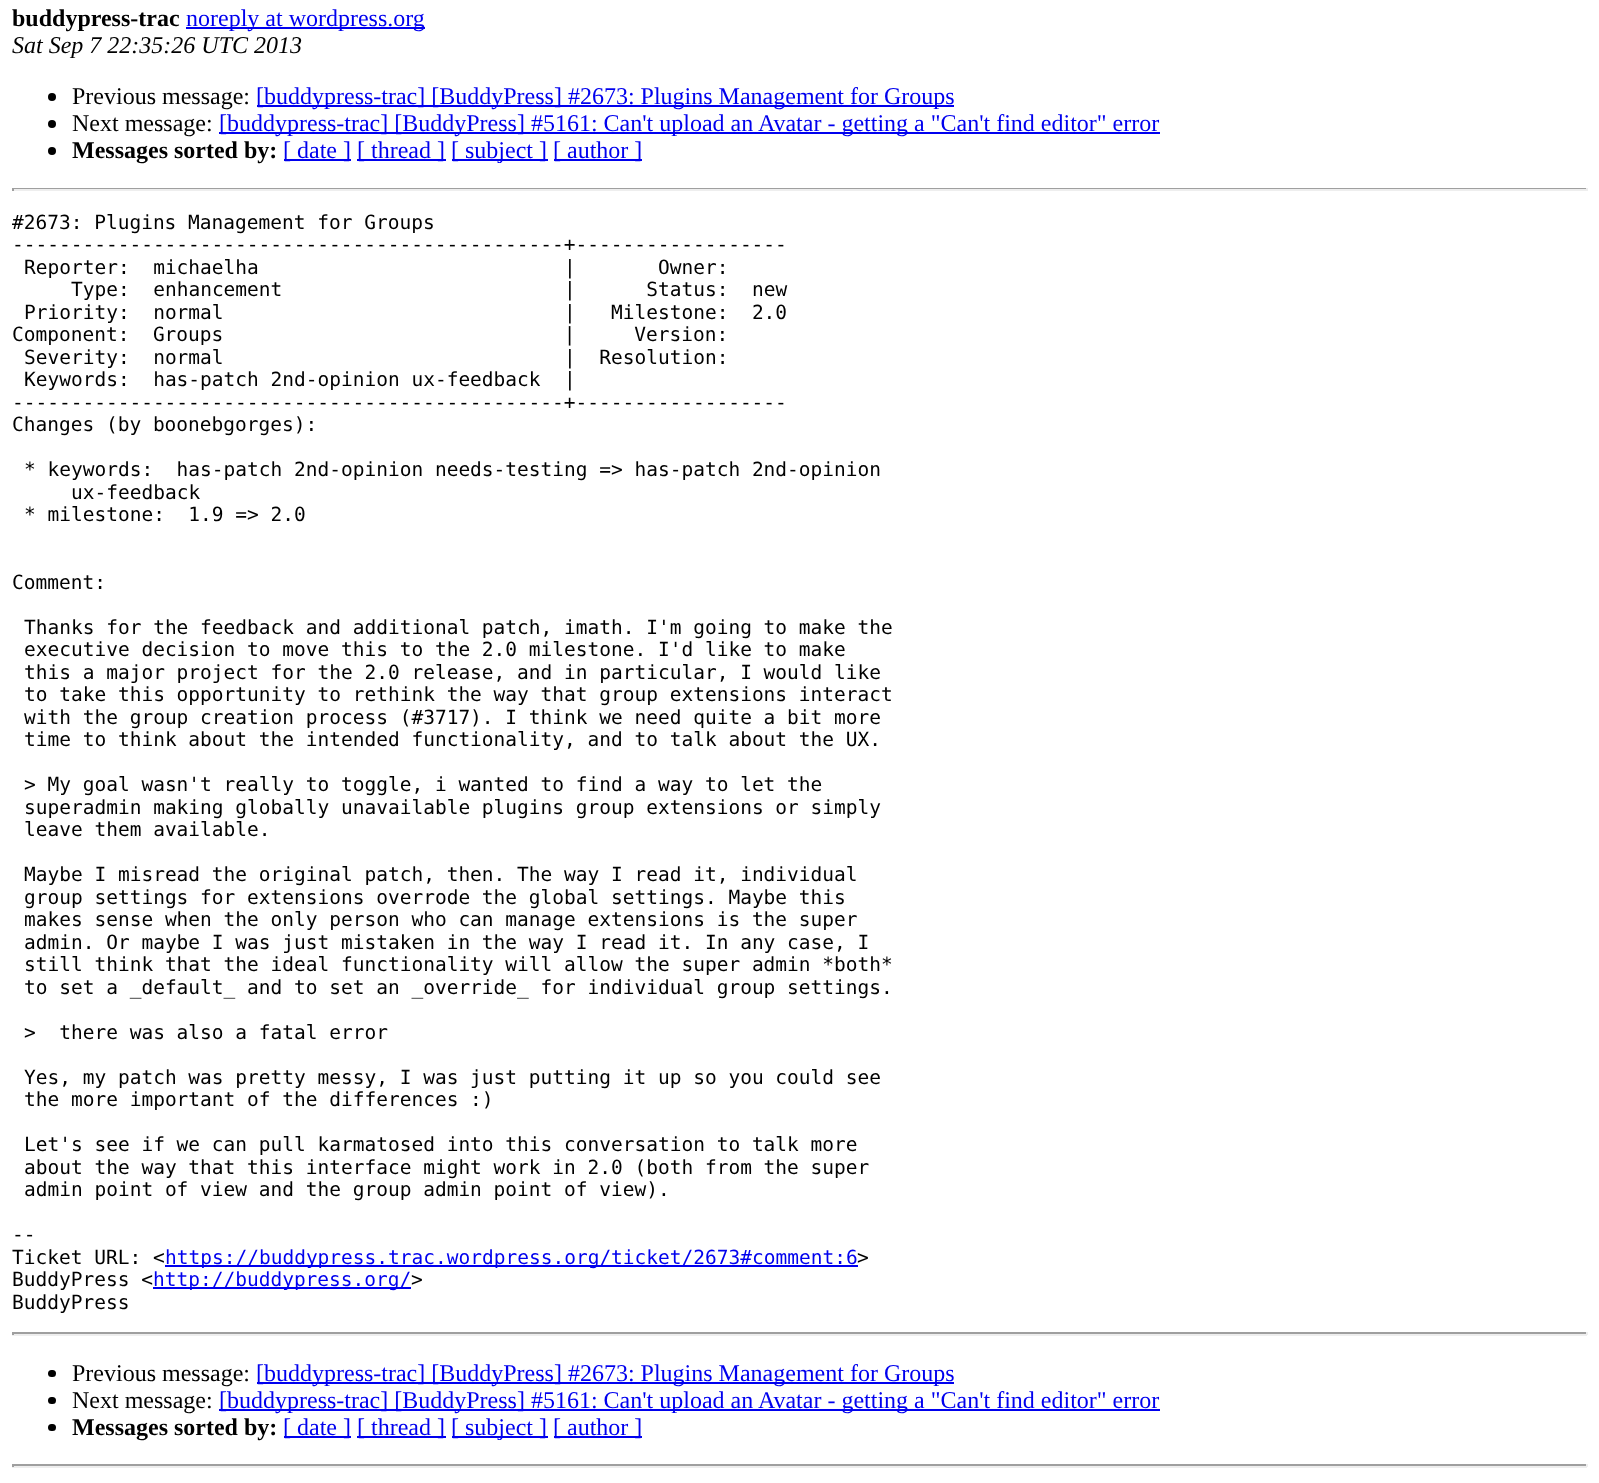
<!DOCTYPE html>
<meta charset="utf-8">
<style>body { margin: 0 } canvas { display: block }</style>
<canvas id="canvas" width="1599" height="1483"></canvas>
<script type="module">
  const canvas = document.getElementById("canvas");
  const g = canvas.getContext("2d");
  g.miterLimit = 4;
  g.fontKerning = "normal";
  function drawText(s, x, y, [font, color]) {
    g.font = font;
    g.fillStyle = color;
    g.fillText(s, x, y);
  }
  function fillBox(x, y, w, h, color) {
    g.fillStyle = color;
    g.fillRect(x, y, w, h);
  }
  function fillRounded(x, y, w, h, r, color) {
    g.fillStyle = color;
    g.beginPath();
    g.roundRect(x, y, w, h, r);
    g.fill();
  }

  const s1 = ["bold 24px Liberation Serif", "#000000"];
  const s2 = ["24px Liberation Serif", "#0000EE"];
  const s3 = ["italic 24px Liberation Serif", "#000000"];
  const s4 = ["24px Liberation Serif", "#000000"];
  const s5 = ["19.5px DejaVu Sans Mono", "#000000"];
  const s6 = ["19.5px DejaVu Sans Mono", "#0000EE"];

  fillBox(0, 0, 1599, 1483, "#FFFFFF");
  drawText("buddypress-trac", 12, 26, s1);
  fillBox(186, 27, 239, 2, "#0000EE");
  drawText("noreply at wordpress.org", 186, 26, s2);
  drawText("Sat Sep 7 22:35:26 UTC 2013", 12, 53, s3);
  g.beginPath();
  g.arc(52, 97, 4, 0, Math.PI * 2);
  g.fill();
  drawText("Previous message:", 72, 104, s4);
  fillBox(257, 105, 697, 2, "#0000EE");
  drawText("[buddypress-trac] [BuddyPress] #2673: Plugins Management for Groups", 256, 104, s2);
  g.fillStyle = "#000000";
  g.beginPath();
  g.arc(52, 124, 4, 0, Math.PI * 2);
  g.fill();
  drawText("Next message:", 72, 131, s4);
  fillBox(219, 132, 941, 2, "#0000EE");
  drawText("[buddypress-trac] [BuddyPress] #5161: Can't upload an Avatar - getting a \"Can't find editor\" error", 219, 131, s2);
  g.fillStyle = "#000000";
  g.beginPath();
  g.arc(52, 151, 4, 0, Math.PI * 2);
  g.fill();
  drawText("Messages sorted by:", 72, 158, s1);
  fillBox(284, 159, 67, 2, "#0000EE");
  drawText("[ date ]", 283, 158, s2);
  fillBox(357, 159, 89, 2, "#0000EE");
  drawText("[ thread ]", 357, 158, s2);
  fillBox(452, 159, 96, 2, "#0000EE");
  drawText("[ subject ]", 451, 158, s2);
  fillBox(554, 159, 88, 2, "#0000EE");
  drawText("[ author ]", 553, 158, s2);
  fillBox(12, 188, 1575, 1, "#9F9F9F");
  fillBox(1586, 188, 2, 3, "#EEEEEE");
  fillBox(12, 189, 1575, 2, "#EEEEEE");
  fillBox(12, 188, 2, 3, "#9F9F9F");
  drawText("#2673: Plugins Management for Groups", 12, 229, s5);
  drawText("-----------------------------------------------+------------------", 12, 251, s5);
  drawText("Reporter:  michaelha                          |       Owner:", 24, 274, s5);
  drawText("Type:  enhancement                        |      Status:  new", 71, 296, s5);
  drawText("Priority:  normal                             |   Milestone:  2.0", 24, 319, s5);
  drawText("Component:  Groups                             |     Version:", 12, 341, s5);
  drawText("Severity:  normal                             |  Resolution:", 24, 364, s5);
  drawText("Keywords:  has-patch 2nd-opinion ux-feedback  |", 24, 386, s5);
  drawText("-----------------------------------------------+------------------", 12, 409, s5);
  drawText("Changes (by boonebgorges):", 12, 431, s5);
  drawText("* keywords:  has-patch 2nd-opinion needs-testing => has-patch 2nd-opinion", 24, 476, s5);
  drawText("ux-feedback", 71, 499, s5);
  drawText("* milestone:  1.9 => 2.0", 24, 521, s5);
  drawText("Comment:", 12, 589, s5);
  drawText("Thanks for the feedback and additional patch, imath. I'm going to make the", 24, 634, s5);
  drawText("executive decision to move this to the 2.0 milestone. I'd like to make", 24, 656, s5);
  drawText("this a major project for the 2.0 release, and in particular, I would like", 24, 679, s5);
  drawText("to take this opportunity to rethink the way that group extensions interact", 24, 701, s5);
  drawText("with the group creation process (#3717). I think we need quite a bit more", 24, 724, s5);
  drawText("time to think about the intended functionality, and to talk about the UX.", 24, 746, s5);
  drawText("> My goal wasn't really to toggle, i wanted to find a way to let the", 24, 791, s5);
  drawText("superadmin making globally unavailable plugins group extensions or simply", 24, 814, s5);
  drawText("leave them available.", 24, 836, s5);
  drawText("Maybe I misread the original patch, then. The way I read it, individual", 24, 881, s5);
  drawText("group settings for extensions overrode the global settings. Maybe this", 24, 904, s5);
  drawText("makes sense when the only person who can manage extensions is the super", 24, 926, s5);
  drawText("admin. Or maybe I was just mistaken in the way I read it. In any case, I", 24, 949, s5);
  drawText("still think that the ideal functionality will allow the super admin *both*", 24, 971, s5);
  drawText("to set a _default_ and to set an _override_ for individual group settings.", 24, 994, s5);
  drawText(">  there was also a fatal error", 24, 1039, s5);
  drawText("Yes, my patch was pretty messy, I was just putting it up so you could see", 24, 1084, s5);
  drawText("the more important of the differences :)", 24, 1106, s5);
  drawText("Let's see if we can pull karmatosed into this conversation to talk more", 24, 1151, s5);
  drawText("about the way that this interface might work in 2.0 (both from the super", 24, 1174, s5);
  drawText("admin point of view and the group admin point of view).", 24, 1196, s5);
  drawText("--", 12, 1241, s5);
  drawText("Ticket URL: <", 12, 1264, s5);
  fillBox(165, 1265, 693, 2, "#0000EE");
  drawText("https://buddypress.trac.wordpress.org/ticket/2673#comment:6", 165, 1264, s6);
  drawText(">", 857, 1264, s5);
  drawText("BuddyPress <", 12, 1286, s5);
  fillBox(153, 1287, 258, 2, "#0000EE");
  drawText("http://buddypress.org/", 153, 1286, s6);
  drawText(">", 411, 1286, s5);
  drawText("BuddyPress", 12, 1309, s5);
  fillBox(12, 1332, 1575, 2, "#9F9F9F");
  fillBox(1586, 1332, 2, 3, "#EEEEEE");
  fillBox(12, 1334, 1575, 2, "#EEEEEE");
  fillBox(12, 1332, 2, 3, "#9F9F9F");
  fillRounded(48, 1370, 8, 7, 3.5, "#000000");
  drawText("Previous message:", 72, 1381, s4);
  fillBox(257, 1382, 697, 2, "#0000EE");
  drawText("[buddypress-trac] [BuddyPress] #2673: Plugins Management for Groups", 256, 1381, s2);
  fillRounded(48, 1397, 8, 7, 3.5, "#000000");
  drawText("Next message:", 72, 1408, s4);
  fillBox(219, 1409, 941, 2, "#0000EE");
  drawText("[buddypress-trac] [BuddyPress] #5161: Can't upload an Avatar - getting a \"Can't find editor\" error", 219, 1408, s2);
  fillRounded(48, 1424, 8, 7, 3.5, "#000000");
  drawText("Messages sorted by:", 72, 1435, s1);
  fillBox(284, 1436, 67, 2, "#0000EE");
  drawText("[ date ]", 283, 1435, s2);
  fillBox(357, 1436, 89, 2, "#0000EE");
  drawText("[ thread ]", 357, 1435, s2);
  fillBox(452, 1436, 96, 2, "#0000EE");
  drawText("[ subject ]", 451, 1435, s2);
  fillBox(554, 1436, 88, 2, "#0000EE");
  drawText("[ author ]", 553, 1435, s2);
  fillBox(12, 1464, 1575, 2, "#9F9F9F");
  fillBox(1586, 1464, 2, 3, "#EEEEEE");
  fillBox(12, 1466, 1575, 2, "#EEEEEE");
  fillBox(12, 1464, 2, 3, "#9F9F9F");
</script>
